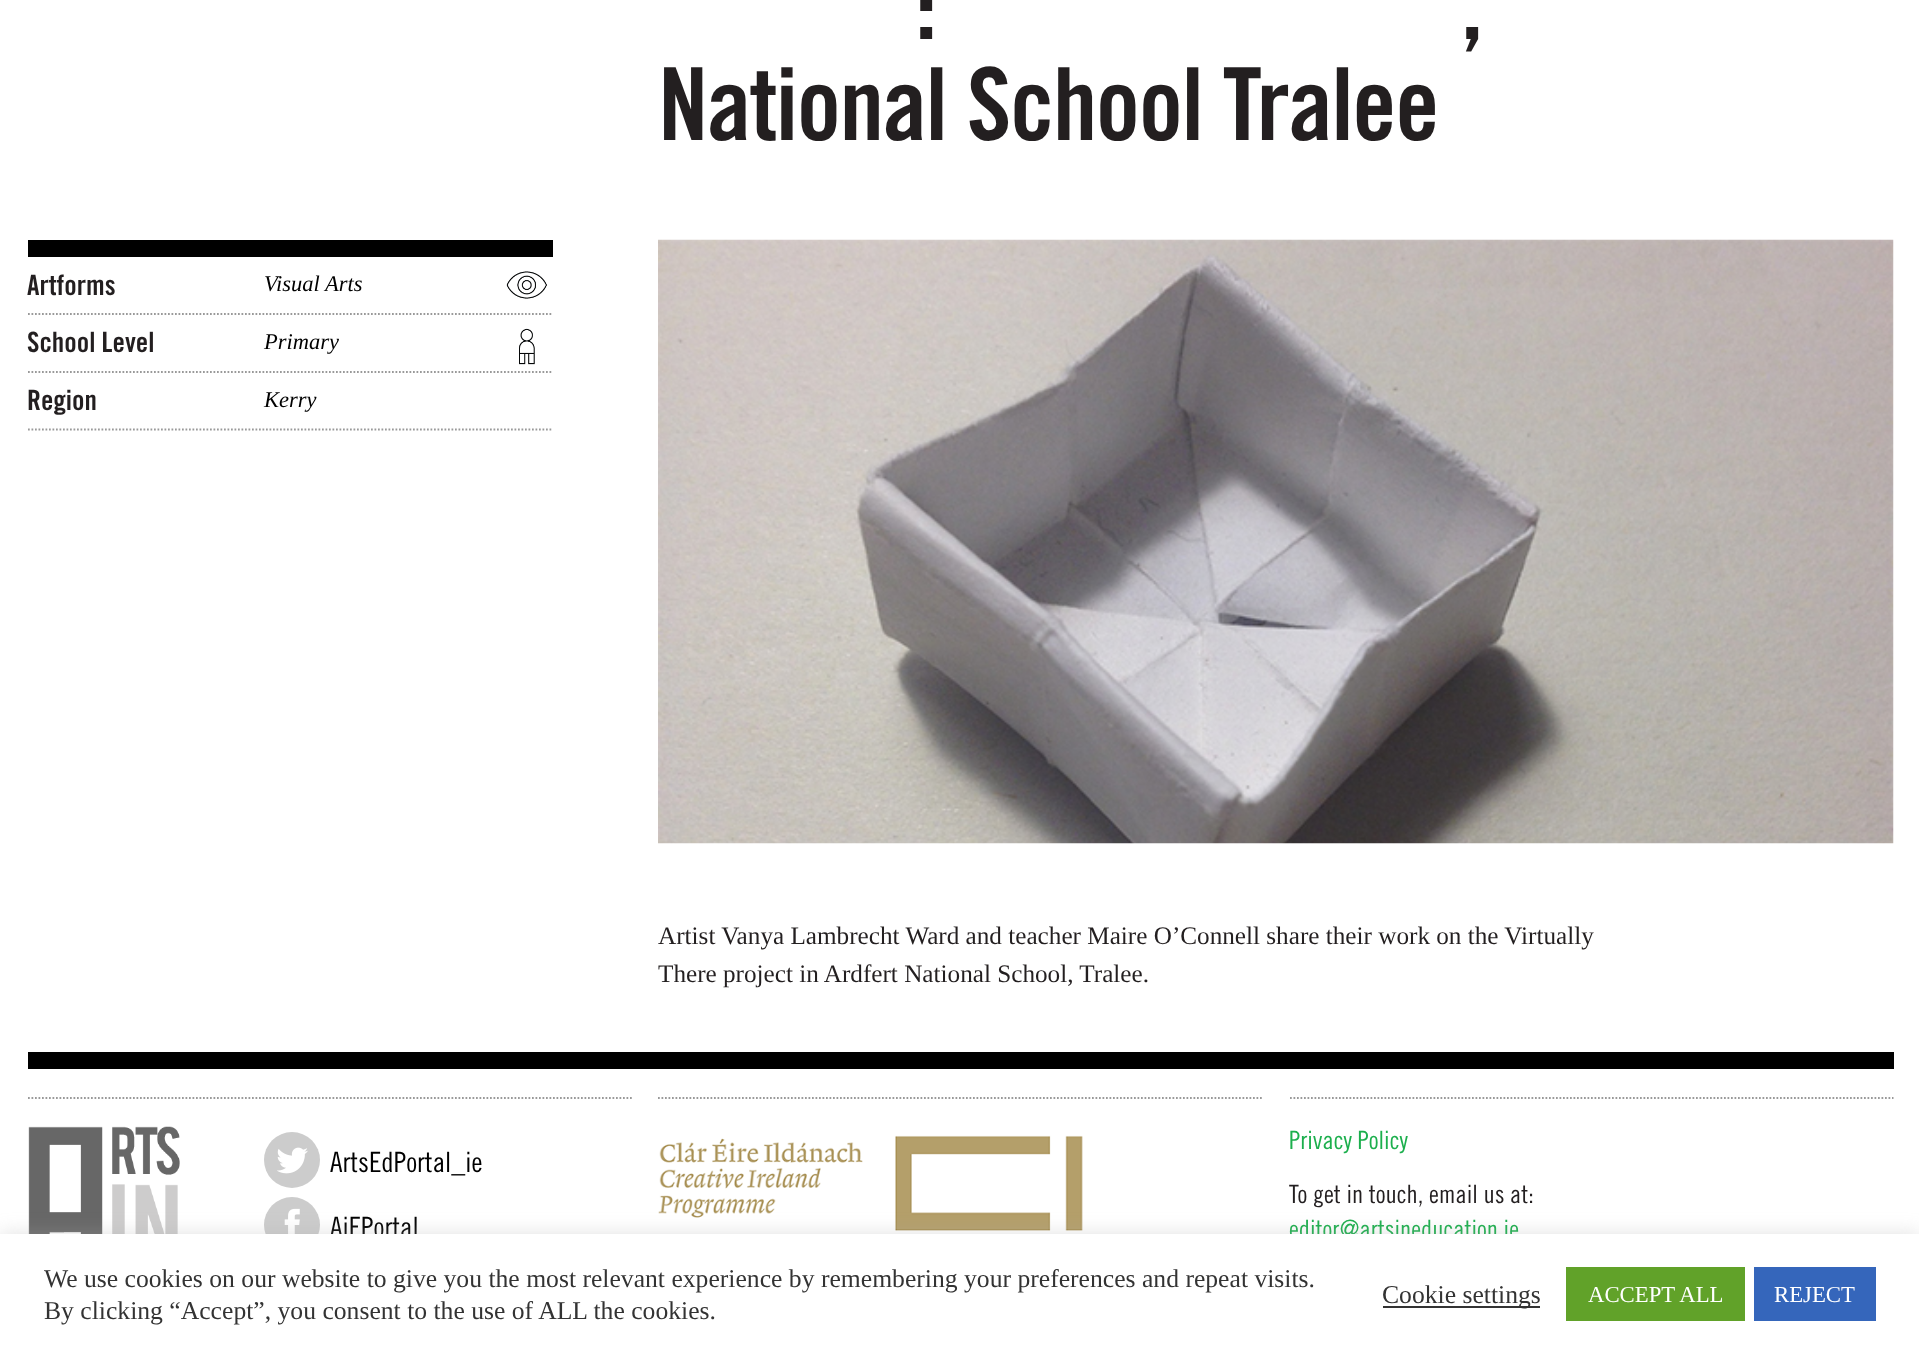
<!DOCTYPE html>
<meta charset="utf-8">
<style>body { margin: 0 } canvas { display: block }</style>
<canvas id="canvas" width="1919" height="1354"></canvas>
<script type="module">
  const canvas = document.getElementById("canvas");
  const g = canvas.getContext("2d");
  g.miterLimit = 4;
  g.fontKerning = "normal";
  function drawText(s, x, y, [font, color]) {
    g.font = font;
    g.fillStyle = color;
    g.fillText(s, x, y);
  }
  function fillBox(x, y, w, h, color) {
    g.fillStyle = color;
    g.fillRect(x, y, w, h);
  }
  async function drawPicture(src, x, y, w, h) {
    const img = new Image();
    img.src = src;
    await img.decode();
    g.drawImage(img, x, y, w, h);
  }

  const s1 = ["bold 100.75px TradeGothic", "#231F20"];
  const s2 = ["bold 28px TradeGothic", "#231F20"];
  const s3 = ["italic 22.5px Liberation Serif", "#000000"];
  const s4 = ["25.2px Liberation Serif", "#231F20"];
  const s5 = ["28px Trade Gothic", "#000000"];
  const s6 = ["25.2px Trade Gothic", "#1CAF4D"];
  const s7 = ["25.2px Trade Gothic", "#231F20"];
  const s8 = ["25.65px Liberation Serif", "#333333"];
  const s9 = ["22.75px Liberation Serif", "#FFFFFF"];

  fillBox(0, 0, 1919, 1354, "#FFFFFF");
  g.letterSpacing = "-1.75px";
  drawText(":", 915, 39, s1);
  drawText(",", 1461, 39, s1);
  drawText("National School Tralee", 658, 140, s1);
  fillBox(28, 240, 525, 17, "#000000");
  g.letterSpacing = "0px";
  drawText("Artforms", 27, 295, s2);
  g.beginPath();
  g.moveTo(28, 314);
  g.lineTo(553, 314);
  g.strokeStyle = "#999999";
  g.lineWidth = 1.8;
  g.setLineDash([1.75, 1.75]);
  g.stroke();
  await drawPicture("pic1.png", 506, 271, 41, 28);
  drawText("Visual Arts", 264, 291, s3);
  drawText("School Level", 27, 352, s2);
  g.beginPath();
  g.moveTo(28, 372);
  g.lineTo(553, 372);
  g.stroke();
  await drawPicture("pic2.png", 519, 328, 16, 37);
  drawText("Primary", 264, 349, s3);
  drawText("Region", 27, 410, s2);
  g.beginPath();
  g.moveTo(28, 429.5);
  g.lineTo(553, 429.5);
  g.stroke();
  drawText("Kerry", 264, 407, s3);
  await drawPicture("pic3.png", 658, 239, 1236, 605);
  drawText("Artist Vanya Lambrecht Ward and teacher Maire O’Connell share their work on the Virtually", 658, 944, s4);
  drawText("There project in Ardfert National School, Tralee.", 658, 982, s4);
  fillBox(28, 1052, 1866, 17, "#000000");
  g.beginPath();
  g.moveTo(28, 1098);
  g.lineTo(632, 1098);
  g.stroke();
  await drawPicture("pic4.png", 28, 1126, 152, 108);
  g.fillStyle = "#CCCCCC";
  g.beginPath();
  g.arc(292, 1160, 28, 0, Math.PI * 2);
  g.fill();
  await drawPicture("pic5.png", 277, 1147, 31, 27);
  drawText("ArtsEdPortal_ie", 330, 1172, s5);
  g.fillStyle = "#CCCCCC";
  g.beginPath();
  g.arc(292, 1225, 28, 0, Math.PI * 2);
  g.fill();
  await drawPicture("pic6.png", 284, 1208, 16, 26);
  drawText("AiEPortal", 330, 1237, s5);
  g.beginPath();
  g.moveTo(658, 1098);
  g.lineTo(1262, 1098);
  g.stroke();
  await drawPicture("pic7.png", 658, 1135, 425, 96);
  g.beginPath();
  g.moveTo(1290, 1098);
  g.lineTo(1893.5, 1098);
  g.stroke();
  drawText("Privacy Policy", 1289, 1149, s6);
  drawText("To get in touch, email us at:", 1289, 1203, s7);
  drawText("editor@artsineducation.ie", 1289, 1238, s6);
  g.fillStyle = "rgba(172, 171, 171, 0.3)";
  g.filter = "blur(9px)";
  g.beginPath();
  g.rect(0, 1232, 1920, 121);
  g.fill();
  g.filter = "none";
  fillBox(0, 1234, 1919, 120, "#FFFFFF");
  drawText("We use cookies on our website to give you the most relevant experience by remembering your preferences and repeat visits.", 44, 1287, s8);
  drawText("By clicking “Accept”, you consent to the use of ALL the cookies.", 44, 1319, s8);
  fillBox(1383, 1306, 157, 2, "#333333");
  drawText("Cookie settings", 1382, 1303, s8);
  fillBox(1566, 1267, 179, 54, "#61A229");
  drawText("ACCEPT ALL", 1588, 1302, s9);
  fillBox(1754, 1267, 122, 54, "#3566BB");
  drawText("REJECT", 1774, 1302, s9);
</script>
